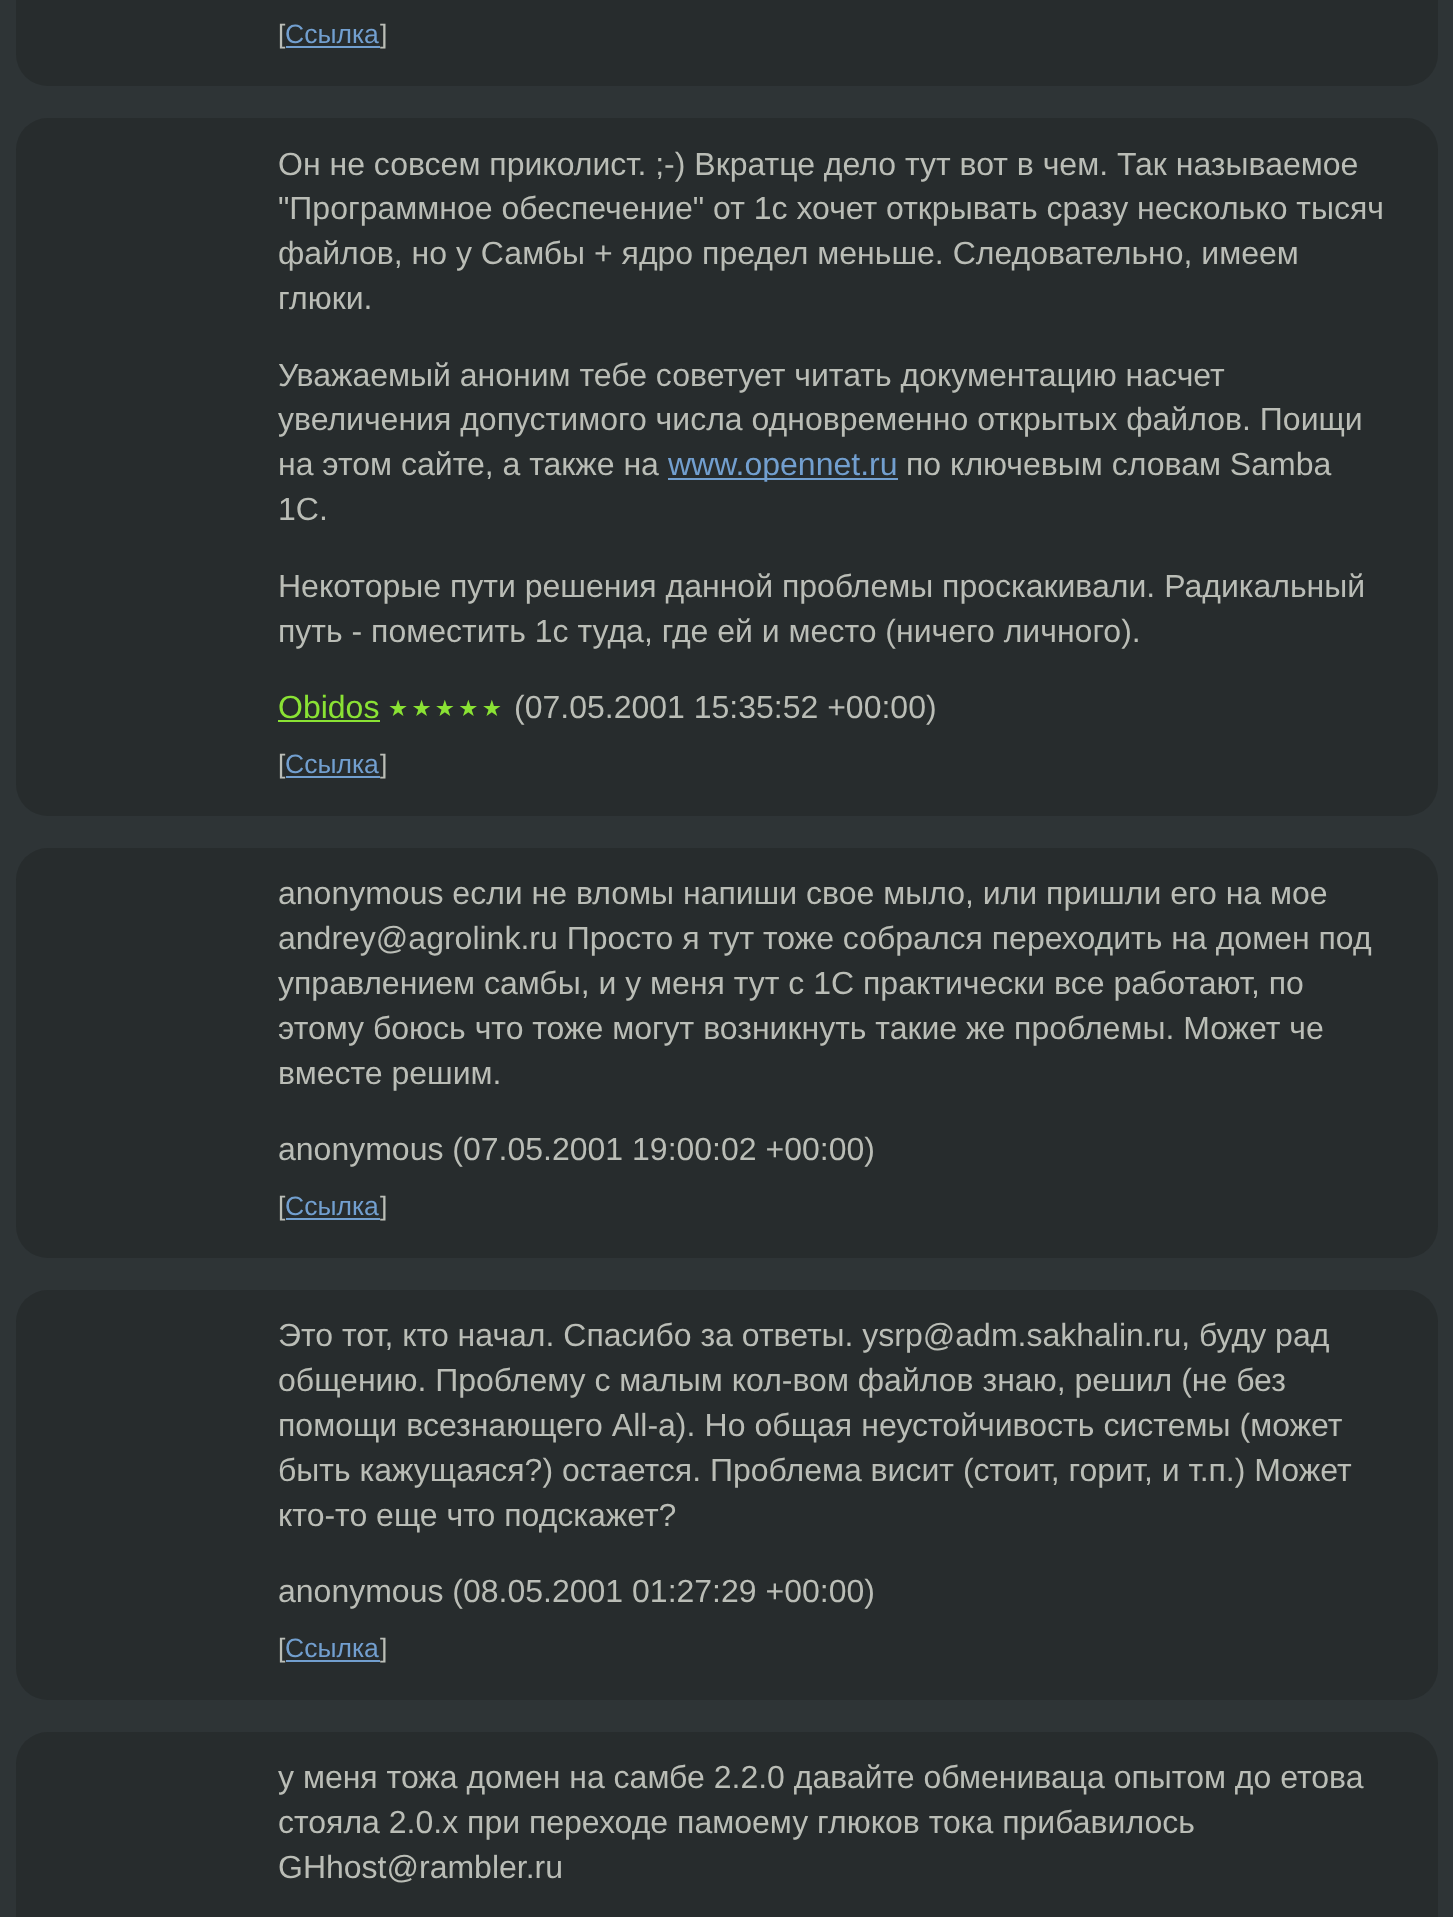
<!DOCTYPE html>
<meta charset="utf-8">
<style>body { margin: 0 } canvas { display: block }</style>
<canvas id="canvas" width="1453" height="1917"></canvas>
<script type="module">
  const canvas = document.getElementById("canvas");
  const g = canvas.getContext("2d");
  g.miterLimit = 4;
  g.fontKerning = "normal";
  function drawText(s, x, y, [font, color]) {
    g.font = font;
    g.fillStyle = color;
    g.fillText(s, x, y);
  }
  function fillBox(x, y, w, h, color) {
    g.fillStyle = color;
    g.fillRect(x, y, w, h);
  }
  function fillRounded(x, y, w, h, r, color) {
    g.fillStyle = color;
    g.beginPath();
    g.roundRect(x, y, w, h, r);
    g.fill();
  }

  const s1 = ["26.5px Liberation Sans", "#BABDB6"];
  const s2 = ["26.5px Liberation Sans", "#729FCF"];
  const s3 = ["32px Liberation Sans", "#BABDB6"];
  const s4 = ["32px Liberation Sans", "#729FCF"];
  const s5 = ["32px Liberation Sans", "#8AE234"];
  const s6 = ["22.5px DejaVu Sans", "#8AE234"];

  fillBox(0, 0, 1453, 1917, "#2E3436");
  fillRounded(16, -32, 1422, 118, 32, "#272C2D");
  drawText("[", 278, 43, s1);
  fillBox(286, 46, 94, 2, "#729FCF");
  drawText("Ссылка", 285, 43, s2);
  drawText("]", 380, 43, s1);
  fillRounded(16, 118, 1422, 698, 32, "#272C2D");
  drawText("Он не совсем приколист. ;-) Вкратце дело тут вот в чем. Так называемое", 278, 175, s3);
  drawText("\"Программное обеспечение\" от 1с хочет открывать сразу несколько тысяч", 278, 219, s3);
  drawText("файлов, но у Самбы + ядро предел меньше. Следовательно, имеем", 278, 264, s3);
  drawText("глюки.", 278, 309, s3);
  drawText("Уважаемый аноним тебе советует читать документацию насчет", 278, 386, s3);
  drawText("увеличения допустимого числа одновременно открытых файлов. Поищи", 278, 430, s3);
  drawText("на этом сайте, а также на", 278, 475, s3);
  fillBox(668, 478, 230, 2, "#729FCF");
  drawText("www.opennet.ru", 668, 475, s4);
  drawText("по ключевым словам Samba", 906, 475, s3);
  drawText("1C.", 278, 520, s3);
  drawText("Некоторые пути решения данной проблемы проскакивали. Радикальный", 278, 597, s3);
  drawText("путь - поместить 1с туда, где ей и место (ничего личного).", 278, 642, s3);
  drawText("Obidos", 278, 718, s5);
  fillBox(278, 720, 102, 2, "#8AE234");
  g.letterSpacing = "3.25px";
  drawText("★★★★★", 388, 716, s6);
  g.letterSpacing = "0px";
  drawText("(07.05.2001 15:35:52 +00:00)", 514, 718, s3);
  drawText("[", 278, 773, s1);
  fillBox(286, 776, 94, 2, "#729FCF");
  drawText("Ссылка", 285, 773, s2);
  drawText("]", 380, 773, s1);
  fillRounded(16, 848, 1422, 410, 32, "#272C2D");
  drawText("anonymous если не вломы напиши свое мыло, или пришли его на мое", 278, 904, s3);
  drawText("andrey@agrolink.ru Просто я тут тоже собрался переходить на домен под", 278, 949, s3);
  drawText("управлением самбы, и у меня тут с 1С практически все работают, по", 278, 994, s3);
  drawText("этому боюсь что тоже могут возникнуть такие же проблемы. Может че", 278, 1039, s3);
  drawText("вместе решим.", 278, 1084, s3);
  drawText("anonymous (07.05.2001 19:00:02 +00:00)", 278, 1160, s3);
  drawText("[", 278, 1215, s1);
  fillBox(286, 1218, 94, 2, "#729FCF");
  drawText("Ссылка", 285, 1215, s2);
  drawText("]", 380, 1215, s1);
  fillRounded(16, 1290, 1422, 410, 32, "#272C2D");
  drawText("Это тот, кто начал. Спасибо за ответы. ysrp@adm.sakhalin.ru, буду рад", 278, 1346, s3);
  drawText("общению. Проблему с малым кол-вом файлов знаю, решил (не без", 278, 1391, s3);
  g.wordSpacing = "0.25px";
  drawText("помощи всезнающего All-а). Но общая неустойчивость системы (может", 278, 1436, s3);
  g.wordSpacing = "0px";
  drawText("быть кажущаяся?) остается. Проблема висит (стоит, горит, и т.п.) Может", 278, 1481, s3);
  drawText("кто-то еще что подскажет?", 278, 1526, s3);
  drawText("anonymous (08.05.2001 01:27:29 +00:00)", 278, 1602, s3);
  drawText("[", 278, 1657, s1);
  fillBox(286, 1660, 94, 2, "#729FCF");
  drawText("Ссылка", 285, 1657, s2);
  drawText("]", 380, 1657, s1);
  fillRounded(16, 1732, 1422, 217, 32, "#272C2D");
  drawText("у меня тожа домен на самбе 2.2.0 давайте обмениваца опытом до етова", 278, 1788, s3);
  drawText("стояла 2.0.x при переходе памоему глюков тока прибавилось", 278, 1833, s3);
  drawText("GHhost@rambler.ru", 278, 1878, s3);
</script>
